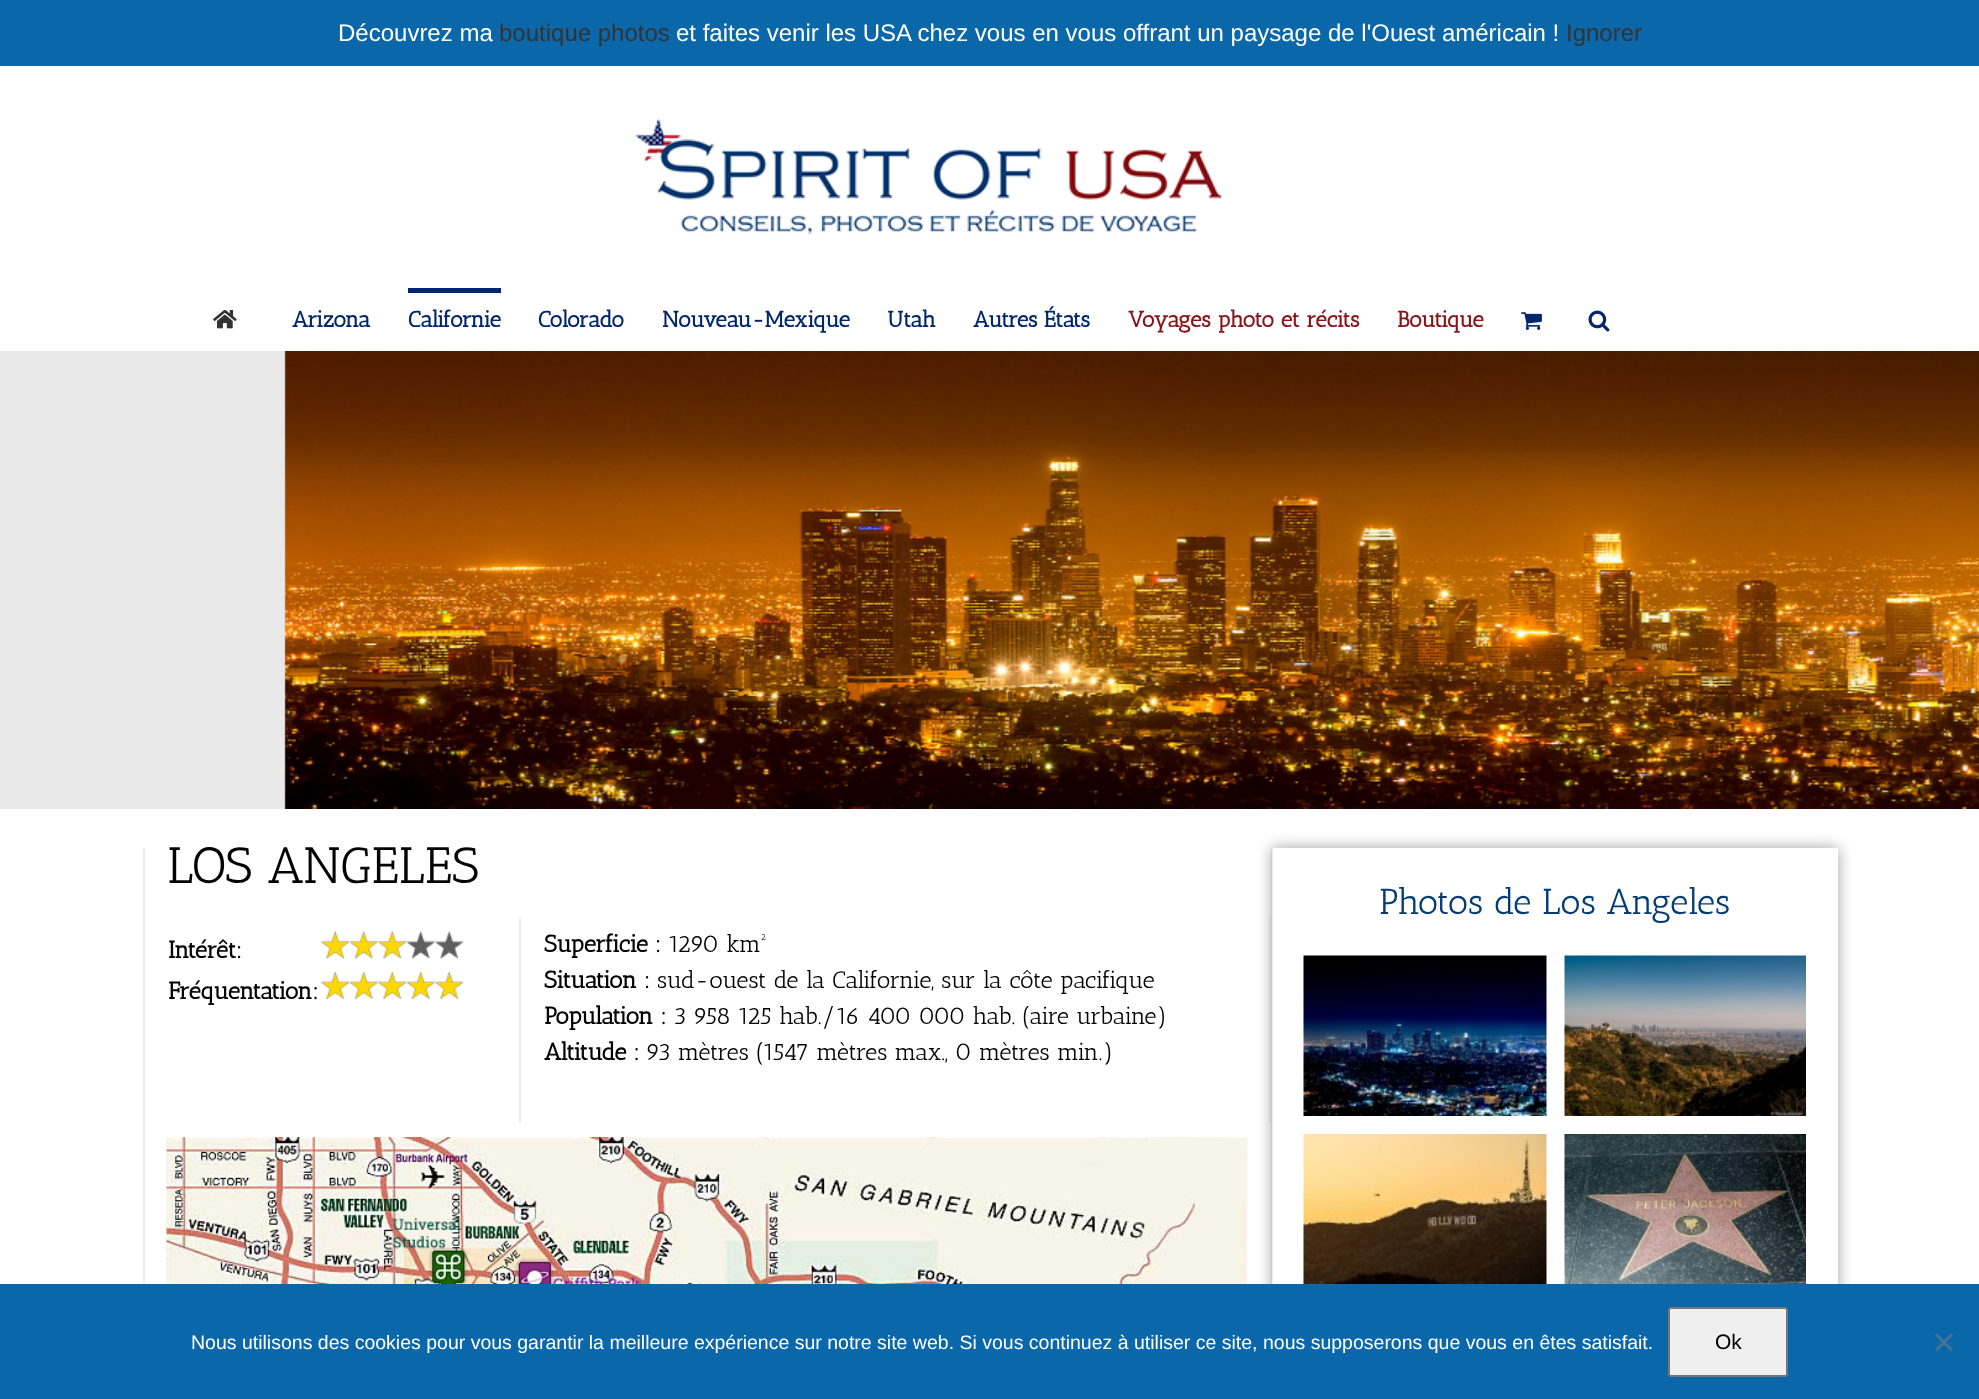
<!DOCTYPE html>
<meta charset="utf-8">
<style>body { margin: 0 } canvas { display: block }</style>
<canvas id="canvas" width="1979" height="1399"></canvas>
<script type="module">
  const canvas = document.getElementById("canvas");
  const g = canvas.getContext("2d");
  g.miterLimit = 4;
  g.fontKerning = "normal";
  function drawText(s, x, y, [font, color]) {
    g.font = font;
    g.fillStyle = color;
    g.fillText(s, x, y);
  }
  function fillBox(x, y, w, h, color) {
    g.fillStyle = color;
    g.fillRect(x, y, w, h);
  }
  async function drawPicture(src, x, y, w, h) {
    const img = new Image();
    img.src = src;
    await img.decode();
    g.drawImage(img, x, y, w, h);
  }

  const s1 = ["24px Liberation Sans", "#FFFFFF"];
  const s2 = ["24px Liberation Sans", "#333333"];
  const s3 = ["bold 22.5px Antic Slab", "#00266D"];
  const s4 = ["bold 22.5px Antic Slab", "#8B1219"];
  const s5 = ["51px Antic Slab", "#020202"];
  const s6 = ["bold 24px Antic Slab", "#020202"];
  const s7 = ["24px Antic Slab", "#020202"];
  const s8 = ["36px Antic Slab", "#033C73"];
  const s9 = ["19.5px Liberation Sans", "#FFFFFF"];
  const s10 = ["21px Liberation Sans", "#020202"];

  fillBox(0, 0, 1979, 1399, "#FFFFFF");
  fillBox(0, 0, 1979, 66, "#0A67AA");
  drawText("Découvrez ma", 338, 41, s1);
  drawText("boutique photos", 499, 41, s2);
  drawText("et faites venir les USA chez vous en vous offrant un paysage de l'Ouest américain !", 676, 41, s1);
  drawText("Ignorer", 1566, 41, s2);
  await drawPicture("pic1.png", 635, 118, 588, 117);
  await drawPicture("pic2.png", 213, 309, 24, 20);
  drawText("Arizona", 292, 327, s3);
  fillBox(408, 288, 93, 5, "#00266D");
  drawText("Californie", 408, 327, s3);
  drawText("Colorado", 538, 327, s3);
  drawText("Nouveau-Mexique", 662, 327, s3);
  drawText("Utah", 887, 327, s3);
  drawText("Autres États", 973, 327, s3);
  drawText("Voyages photo et récits", 1128, 327, s4);
  drawText("Boutique", 1397, 327, s4);
  await drawPicture("pic3.png", 1521, 312, 21, 18);
  await drawPicture("pic4.png", 1588, 310, 22, 22);
  fillBox(0, 351, 286, 458, "#E9E9E9");
  await drawPicture("pic5.png", 284, 351, 1695, 458);
  fillBox(1271, 848, 2, 436, "#EDEDED");
  fillBox(143, 848, 2, 436, "#EDEDED");
  drawText("LOS ANGELES", 167, 883, s5);
  drawText("Intérêt:", 168, 958, s6);
  await drawPicture("pic6.png", 321, 931, 143, 28);
  drawText("Fréquentation:", 168, 999, s6);
  await drawPicture("pic7.png", 321, 972, 143, 27);
  fillBox(1269, 917, 2, 205, "#EDEDED");
  fillBox(519, 917, 2, 205, "#EDEDED");
  drawText("Superficie :", 544, 952, s6);
  drawText("1290 km²", 668, 952, s7);
  drawText("Situation :", 544, 988, s6);
  drawText("sud-ouest de la Californie, sur la côte pacifique", 657, 988, s7);
  drawText("Population :", 544, 1024, s6);
  drawText("3 958 125 hab./16 400 000 hab. (aire urbaine)", 673, 1024, s7);
  drawText("Altitude :", 544, 1060, s6);
  drawText("93 mètres (1547 mètres max., 0 mètres min.)", 646, 1060, s7);
  await drawPicture("pic8.png", 166, 1137, 1082, 147);
  g.save();
  g.beginPath();
  g.moveTo(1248, 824);
  g.lineTo(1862, 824);
  g.lineTo(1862, 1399);
  g.lineTo(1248, 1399);
  g.closePath();
  g.moveTo(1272, 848);
  g.lineTo(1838, 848);
  g.lineTo(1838, 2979);
  g.lineTo(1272, 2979);
  g.closePath();
  g.clip("evenodd");
  g.fillStyle = "#A2A2A2";
  g.filter = "blur(7.5px)";
  g.beginPath();
  g.rect(1272, 848, 566, 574);
  g.fill();
  g.filter = "none";
  g.restore();
  drawText("Photos de Los Angeles", 1379, 914, s8);
  await drawPicture("pic9.png", 1303, 955, 244, 161);
  await drawPicture("pic10.png", 1564, 955, 242, 161);
  await drawPicture("pic11.png", 1303, 1134, 244, 150);
  await drawPicture("pic12.png", 1564, 1134, 242, 150);
  fillBox(0, 1284, 1979, 115, "#0A67AA");
  drawText("Nous utilisons des cookies pour vous garantir la meilleure expérience sur notre site web. Si vous continuez à utiliser ce site, nous supposerons que vous en êtes satisfait.", 191, 1349, s9);
  g.fillStyle = "#EFEFEF";
  g.beginPath();
  g.roundRect(1669, 1308, 118, 68, 2);
  g.fill();
  g.strokeStyle = "#767676";
  g.lineWidth = 2;
  g.stroke();
  drawText("Ok", 1715, 1349, s10);
  g.fillStyle = "#457495";
  g.beginPath();
  g.moveTo(1951, 1333.5);
  g.lineTo(1953, 1335.5);
  g.lineTo(1937, 1351.5);
  g.lineTo(1935, 1349.5);
  g.closePath();
  g.fill();
  g.beginPath();
  g.moveTo(1935, 1335.5);
  g.lineTo(1937, 1333.5);
  g.lineTo(1953, 1349.5);
  g.lineTo(1951, 1351.5);
  g.closePath();
  g.fill();
</script>
